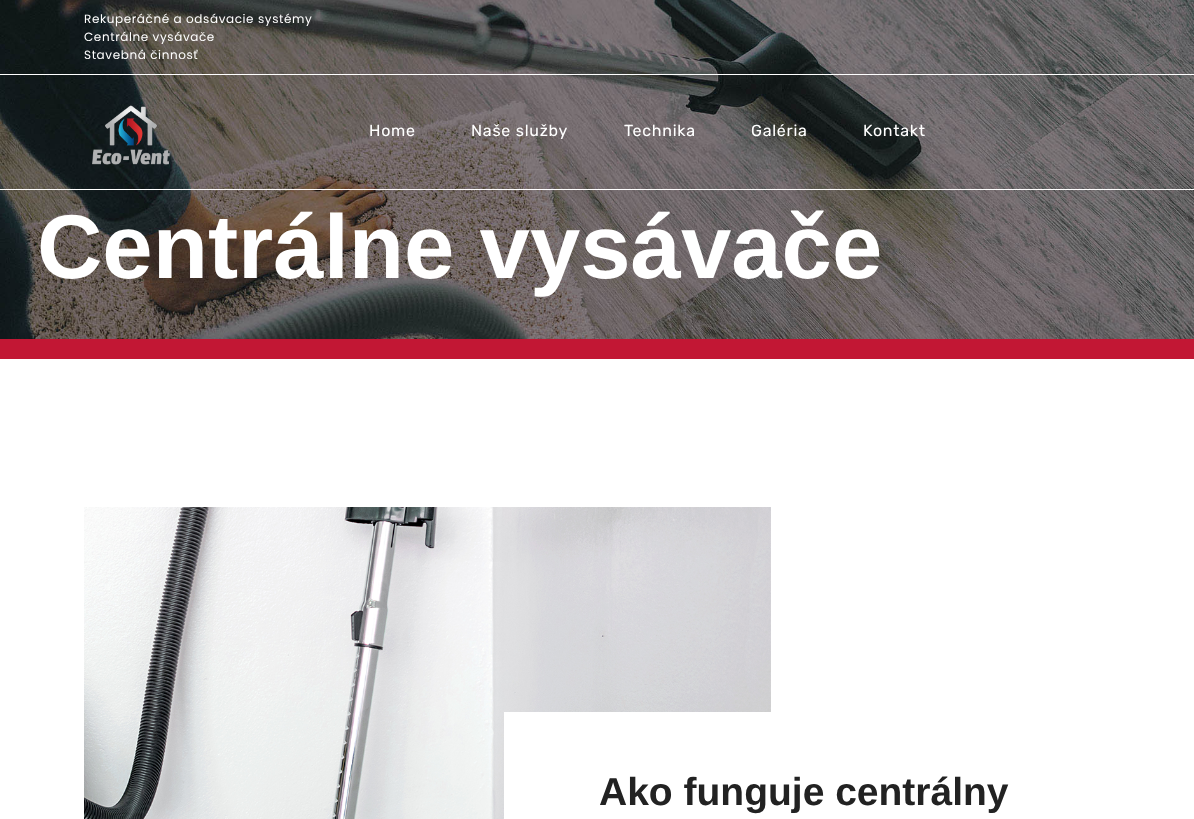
<!DOCTYPE html>
<meta charset="utf-8">
<style>body { margin: 0 } canvas { display: block }</style>
<canvas id="canvas" width="1194" height="819"></canvas>
<script type="module">
  const canvas = document.getElementById("canvas");
  const g = canvas.getContext("2d");
  g.miterLimit = 4;
  g.fontKerning = "normal";
  function drawText(s, x, y, [font, color]) {
    g.font = font;
    g.fillStyle = color;
    g.fillText(s, x, y);
  }
  function fillBox(x, y, w, h, color) {
    g.fillStyle = color;
    g.fillRect(x, y, w, h);
  }
  async function drawPicture(src, x, y, w, h) {
    const img = new Image();
    img.src = src;
    await img.decode();
    g.drawImage(img, x, y, w, h);
  }

  const s1 = ["12px Poppins", "#FFFFFF"];
  const s2 = ["16px Rubik", "#FFFFFF"];
  const s3 = ["bold 90.5px Liberation Sans", "#FFFFFF"];
  const s4 = ["bold 39px Liberation Sans", "#222222"];

  fillBox(0, 0, 1194, 819, "#FFFFFF");
  await drawPicture("pic2.png", 0, 0, 1194, 339);
  fillBox(0, 74, 1194, 1, "#FFFFFF");
  g.letterSpacing = "0.6px";
  drawText("Rekuperáčné a odsávacie systémy", 84, 23, s1);
  drawText("Centrálne vysávače", 84, 41, s1);
  drawText("Stavebná činnosť", 84, 59, s1);
  fillBox(0, 189, 1194, 1, "#FFFFFF");
  await drawPicture("pic1.png", 92, 105, 78, 60);
  g.letterSpacing = "0.75px";
  drawText("Home", 369, 136, s2);
  drawText("Naše služby", 471, 136, s2);
  drawText("Technika", 624, 136, s2);
  drawText("Galéria", 751, 136, s2);
  drawText("Kontakt", 863, 136, s2);
  g.letterSpacing = "0px";
  drawText("Centrálne vysávače", 37, 278, s3);
  fillBox(0, 339, 1194, 20, "#C21734");
  await drawPicture("pic3.png", 84, 507, 687, 312);
  fillBox(504, 712, 267, 107, "#FFFFFF");
  drawText("Ako funguje centrálny", 599, 805, s4);
</script>
